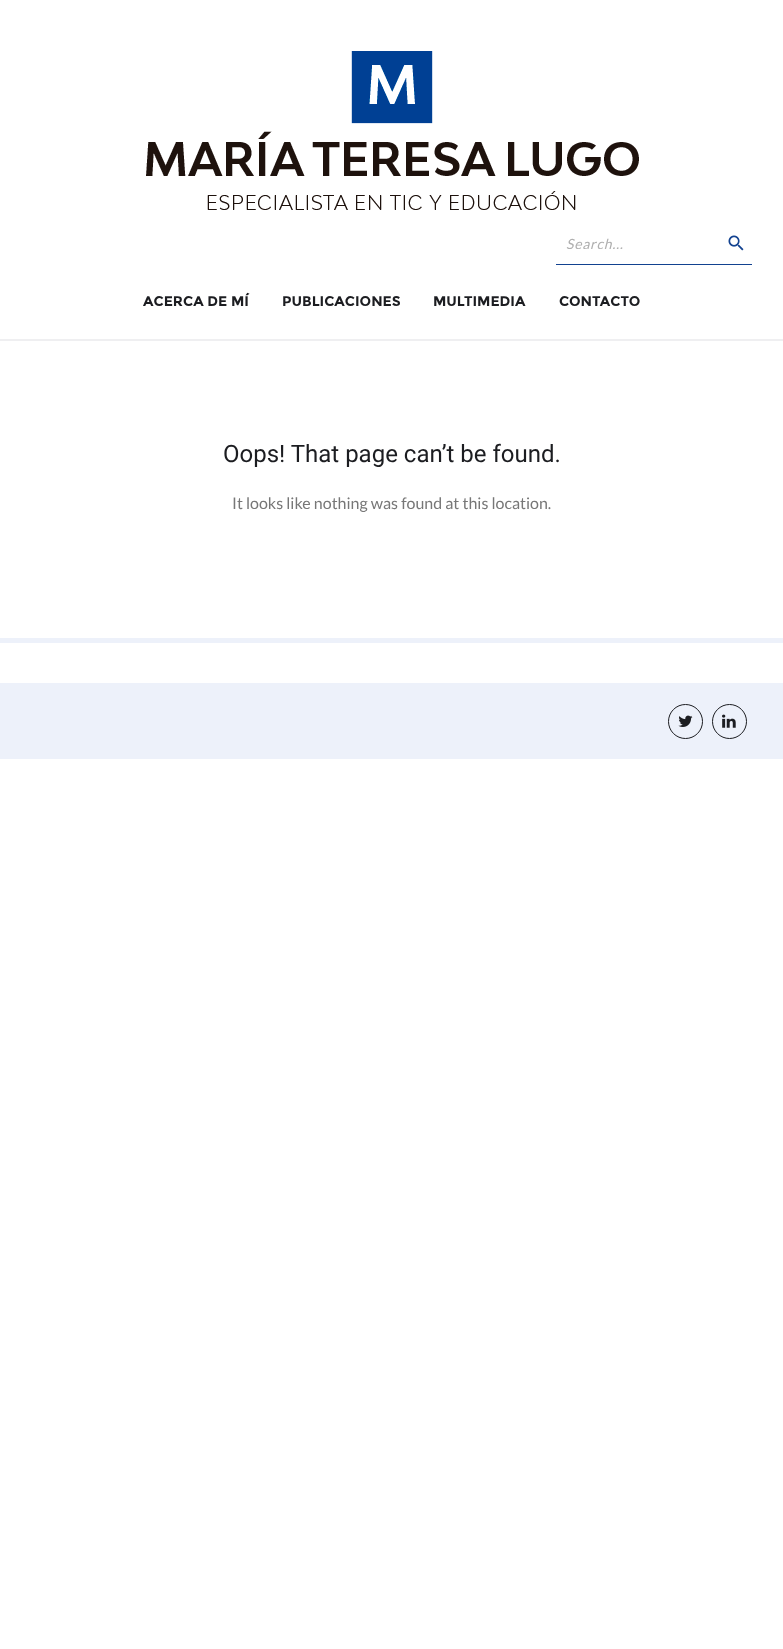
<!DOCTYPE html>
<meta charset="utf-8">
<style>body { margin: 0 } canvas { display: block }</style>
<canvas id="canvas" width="783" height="1649"></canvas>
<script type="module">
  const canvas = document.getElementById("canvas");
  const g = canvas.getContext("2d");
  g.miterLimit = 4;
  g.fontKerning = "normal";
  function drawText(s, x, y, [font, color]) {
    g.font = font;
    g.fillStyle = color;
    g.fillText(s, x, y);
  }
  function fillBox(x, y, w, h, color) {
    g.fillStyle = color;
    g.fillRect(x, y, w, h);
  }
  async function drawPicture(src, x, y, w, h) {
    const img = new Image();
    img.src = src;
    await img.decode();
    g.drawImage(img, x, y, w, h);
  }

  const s1 = ["italic 14px Lato", "#AFAFAF"];
  const s2 = ["bold 14px Montserrat", "#1C1D21"];
  const s3 = ["24px Roboto", "#1C1D21"];
  const s4 = ["16px Lato", "#777777"];

  fillBox(0, 0, 783, 1649, "#FFFFFF");
  fillBox(0, 339, 783, 2, "#EFEFF1");
  await drawPicture("pic1.png", 146, 51, 493, 159);
  fillBox(556, 264, 196, 1, "#124290");
  g.letterSpacing = "0.75px";
  drawText("Search...", 566, 249, s1);
  await drawPicture("pic2.png", 728, 235, 16, 16);
  g.letterSpacing = "0px";
  drawText("ACERCA DE MÍ", 143, 306, s2);
  drawText("PUBLICACIONES", 282, 306, s2);
  drawText("MULTIMEDIA", 433, 306, s2);
  drawText("CONTACTO", 559, 306, s2);
  drawText("Oops! That page can’t be found.", 223, 462, s3);
  drawText("It looks like nothing was found at this location.", 232, 509, s4);
  fillBox(0, 638, 783, 5, "#EDF1FA");
  fillBox(0, 683, 783, 76, "#EDF1FA");
  g.beginPath();
  g.arc(685.5, 721.5, 17, 0, Math.PI * 2);
  g.strokeStyle = "#1C1D21";
  g.stroke();
  await drawPicture("pic3.png", 678, 715, 15, 12);
  g.beginPath();
  g.arc(729.5, 721.5, 17, 0, Math.PI * 2);
  g.stroke();
  await drawPicture("pic4.png", 722, 714, 14, 14);
</script>
